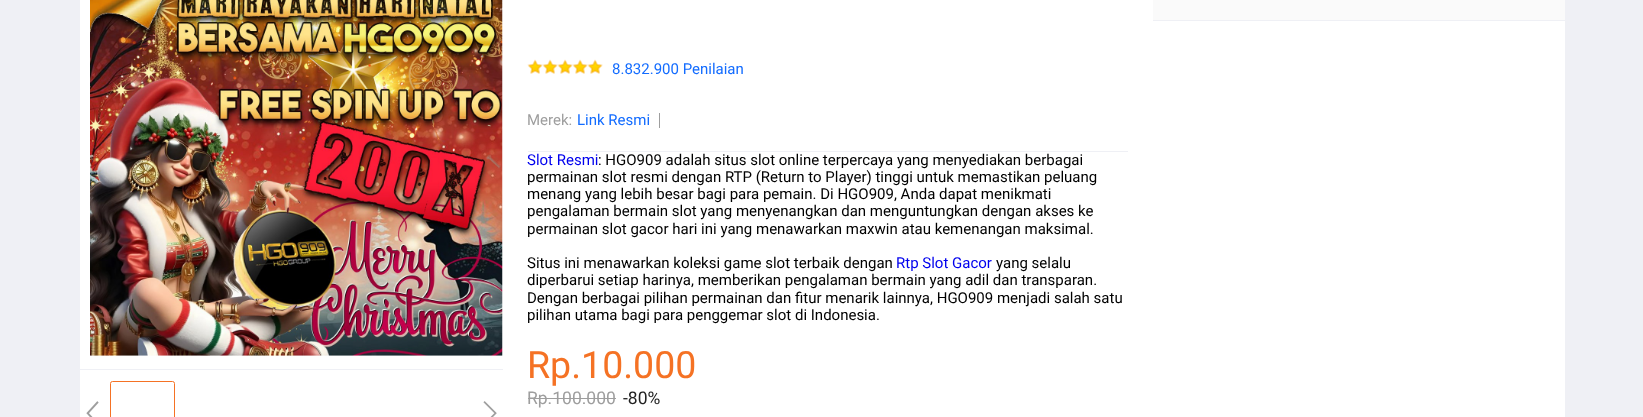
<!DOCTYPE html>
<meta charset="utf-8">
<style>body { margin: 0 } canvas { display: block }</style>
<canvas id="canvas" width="1643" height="417"></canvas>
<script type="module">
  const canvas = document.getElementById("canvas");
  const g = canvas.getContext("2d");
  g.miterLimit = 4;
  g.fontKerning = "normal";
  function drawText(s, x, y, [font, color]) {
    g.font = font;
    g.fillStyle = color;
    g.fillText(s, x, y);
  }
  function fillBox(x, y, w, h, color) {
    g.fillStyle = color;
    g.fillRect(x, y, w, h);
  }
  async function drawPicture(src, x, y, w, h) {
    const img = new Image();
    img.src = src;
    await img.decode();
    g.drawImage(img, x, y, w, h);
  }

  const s1 = ["15px Roboto", "#136CFF"];
  const s2 = ["15px Roboto", "#9E9E9E"];
  const s3 = ["15px Roboto", "#0000EE"];
  const s4 = ["15px Roboto", "#000000"];
  const s5 = ["37.5px Roboto", "#F57224"];
  const s6 = ["17.5px Roboto", "#9E9E9E"];
  const s7 = ["17.5px Roboto", "#212121"];

  fillBox(0, 0, 1643, 417, "#EFF0F5");
  fillBox(80, 0, 1485, 417, "#FFFFFF");
  fillBox(80, 369, 423, 1, "#EFF0F5");
  await drawPicture("pic1.png", 90, 0, 413, 356);
  await drawPicture("pic2.png", 86, 401, 13, 16);
  g.beginPath();
  g.roundRect(110.5, 381.5, 64, 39, 2);
  g.strokeStyle = "#F57224";
  g.stroke();
  await drawPicture("pic3.png", 483, 401, 14, 16);
  fillBox(1153, 0, 412, 20, "#FAFAFA");
  fillBox(1153, 20, 412, 1, "#EFF0F5");
  await drawPicture("pic4.png", 527, 59, 16, 15);
  await drawPicture("pic5.png", 542, 59, 16, 15);
  await drawPicture("pic5.png", 557, 59, 16, 15);
  await drawPicture("pic5.png", 572, 59, 16, 15);
  await drawPicture("pic5.png", 587, 59, 16, 15);
  drawText("8.832.900 Penilaian", 612, 74, s1);
  fillBox(528, 151, 600, 1, "#EFF0F5");
  drawText("Merek:", 527, 125, s2);
  drawText("Link Resmi", 577, 125, s1);
  fillBox(659, 113, 1, 15, "#9E9E9E");
  drawText("Slot Resmi", 527, 165, s3);
  drawText(": HGO909 adalah situs slot online terpercaya yang menyediakan berbagai", 598, 165, s4);
  drawText("permainan slot resmi dengan RTP (Return to Player) tinggi untuk memastikan peluang", 527, 182, s4);
  drawText("menang yang lebih besar bagi para pemain. Di HGO909, Anda dapat menikmati", 527, 199, s4);
  drawText("pengalaman bermain slot yang menyenangkan dan menguntungkan dengan akses ke", 527, 216, s4);
  drawText("permainan slot gacor hari ini yang menawarkan maxwin atau kemenangan maksimal.", 527, 234, s4);
  drawText("Situs ini menawarkan koleksi game slot terbaik dengan", 527, 268, s4);
  drawText("Rtp Slot Gacor", 896, 268, s3);
  drawText("yang selalu", 996, 268, s4);
  drawText("diperbarui setiap harinya, memberikan pengalaman bermain yang adil dan transparan.", 527, 285, s4);
  drawText("Dengan berbagai pilihan permainan dan fitur menarik lainnya, HGO909 menjadi salah satu", 527, 303, s4);
  drawText("pilihan utama bagi para penggemar slot di Indonesia.", 527, 320, s4);
  drawText("Rp.10.000", 527, 378, s5);
  drawText("Rp.100.000", 527, 404, s6);
  fillBox(528, 398, 88, 1, "#9E9E9E");
  drawText("-80%", 623, 404, s7);
</script>
